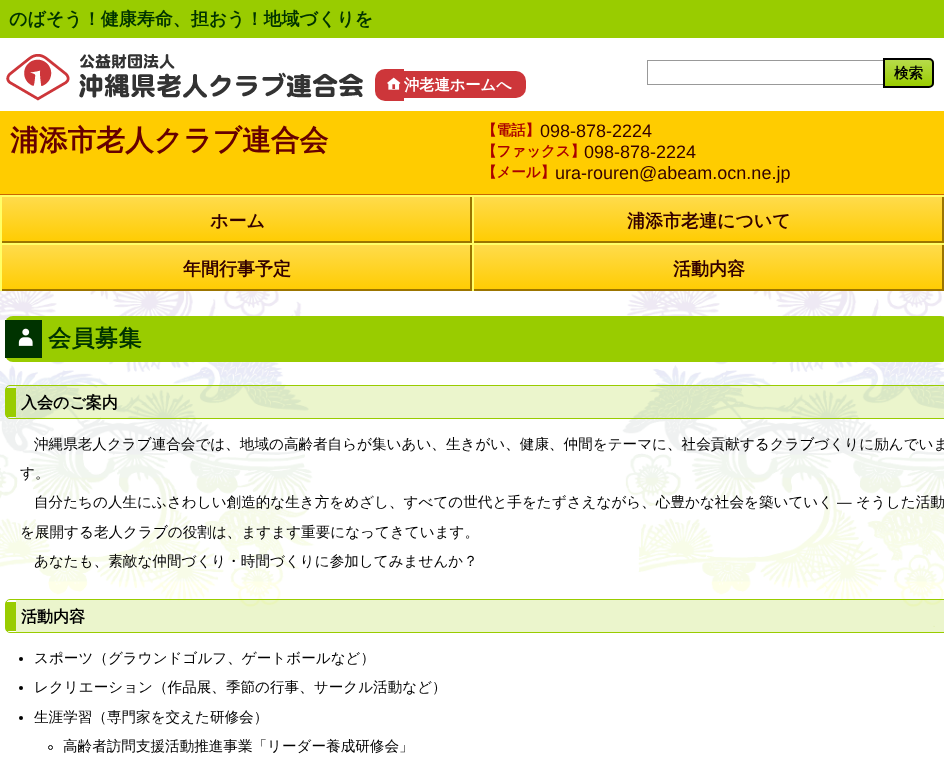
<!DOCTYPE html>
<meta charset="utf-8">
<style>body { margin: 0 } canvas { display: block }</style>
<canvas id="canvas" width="944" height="774"></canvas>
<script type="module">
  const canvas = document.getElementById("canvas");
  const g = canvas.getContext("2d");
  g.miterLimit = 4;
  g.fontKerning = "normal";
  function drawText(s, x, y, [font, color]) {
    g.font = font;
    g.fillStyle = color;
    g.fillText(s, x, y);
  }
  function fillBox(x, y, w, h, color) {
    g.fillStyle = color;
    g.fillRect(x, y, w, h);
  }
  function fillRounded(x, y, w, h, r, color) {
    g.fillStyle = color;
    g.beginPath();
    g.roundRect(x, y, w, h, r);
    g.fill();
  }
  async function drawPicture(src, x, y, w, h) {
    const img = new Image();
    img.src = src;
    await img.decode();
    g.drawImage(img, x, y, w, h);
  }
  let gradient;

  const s1 = ["bold 18px WenQuanYi Zen Hei", "#003300"];
  const s2 = ["bold 14.5px WenQuanYi Zen Hei", "#000000"];
  const s3 = ["bold 15.25px WenQuanYi Zen Hei", "#FFFFFF"];
  const s4 = ["bold 28.75px WenQuanYi Zen Hei", "#660000"];
  const s5 = ["bold 14.5px WenQuanYi Zen Hei", "#AA0000"];
  const s6 = ["18px Liberation Sans", "#330000"];
  const s7 = ["bold 18px WenQuanYi Zen Hei", "#330000"];
  const s8 = ["bold 23px WenQuanYi Zen Hei", "#003300"];
  const s9 = ["bold 16px WenQuanYi Zen Hei", "#000000"];
  const s10 = ["500 14.58px WenQuanYi Zen Hei", "#000000"];
  const s11 = ["14.58px Liberation Sans", "#000000"];

  fillBox(0, 0, 944, 774, "#FFFFFF");
  await drawPicture("pic1.png", 0, 291, 944, 336);
  fillBox(0, 0, 944, 38, "#99CC00");
  drawText("のばそう！健康寿命、担おう！地域づくりを", 9, 25, s1);
  g.strokeStyle = "#999999";
  g.strokeRect(647.5, 60.5, 237, 24);
  g.save();
  g.beginPath();
  g.roundRect(883, 58, 51, 30, [0, 5, 5, 0]);
  g.clip();
  gradient = g.createLinearGradient(909, 60, 909, 86);
  gradient.addColorStop(0, "#B7DB4B");
  gradient.addColorStop(1, "#99CC00");
  g.fillStyle = gradient;
  g.fillRect(885, 60, 49, 26);
  g.restore();
  g.beginPath();
  g.roundRect(884, 59, 49, 28, [0, 4, 4, 0]);
  g.strokeStyle = "#000000";
  g.lineWidth = 2;
  g.stroke();
  drawText("検索", 894, 78, s2);
  await drawPicture("pic2.png", 6, 54, 357, 47);
  g.fillStyle = "#CD363A";
  g.beginPath();
  g.roundRect(375, 69, 29, 32, [10, 0, 0, 10]);
  g.fill();
  g.beginPath();
  g.roundRect(404, 71, 122, 27, [0, 10, 10, 0]);
  g.fill();
  await drawPicture("pic3.png", 387, 77, 14, 13);
  drawText("沖老連ホームへ", 404, 90, s3);
  fillBox(0, 111, 944, 83, "#FFCC00");
  fillBox(0, 194, 944, 1, "#CC6600");
  drawText("浦添市老人クラブ連合会", 10, 150, s4);
  drawText("【電話】", 482, 135, s5);
  drawText("098-878-2224", 540, 137, s6);
  drawText("【ファックス】", 482, 156, s5);
  drawText("098-878-2224", 584, 158, s6);
  drawText("【メール】", 482, 177, s5);
  drawText("ura-rouren@abeam.ocn.ne.jp", 555, 179, s6);
  gradient = g.createLinearGradient(237, 197, 237, 243);
  gradient.addColorStop(0, "#FFDB4B");
  gradient.addColorStop(1, "#FFCC00");
  g.fillStyle = gradient;
  g.fillRect(2, 197, 468, 44);
  g.save();
  g.beginPath();
  g.rect(2, 197, 470, 46);
  g.clip();
  g.fillStyle = "#9C7500";
  g.beginPath();
  g.moveTo(-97, 98);
  g.lineTo(571, 98);
  g.lineTo(571, 342);
  g.lineTo(-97, 342);
  g.closePath();
  g.moveTo(0, 195);
  g.lineTo(470, 195);
  g.lineTo(470, 241);
  g.lineTo(0, 241);
  g.closePath();
  g.fill("evenodd");
  g.restore();
  fillBox(0, 195, 944, 2, "#FFFF66");
  fillBox(0, 195, 2, 48, "#FFFF66");
  drawText("ホーム", 210, 227, s7);
  gradient = g.createLinearGradient(709, 197, 709, 243);
  gradient.addColorStop(0, "#FFDB4B");
  gradient.addColorStop(1, "#FFCC00");
  g.fillStyle = gradient;
  g.fillRect(474, 197, 468, 44);
  g.save();
  g.beginPath();
  g.rect(474, 197, 470, 46);
  g.clip();
  g.fillStyle = "#9C7500";
  g.beginPath();
  g.moveTo(375, 98);
  g.lineTo(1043, 98);
  g.lineTo(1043, 342);
  g.lineTo(375, 342);
  g.closePath();
  g.moveTo(472, 195);
  g.lineTo(942, 195);
  g.lineTo(942, 241);
  g.lineTo(472, 241);
  g.closePath();
  g.fill("evenodd");
  g.restore();
  fillBox(472, 195, 2, 48, "#FFFF66");
  drawText("浦添市老連について", 627, 227, s7);
  gradient = g.createLinearGradient(237, 245, 237, 291);
  gradient.addColorStop(0, "#FFDB4B");
  gradient.addColorStop(1, "#FFCC00");
  g.fillStyle = gradient;
  g.fillRect(2, 245, 468, 44);
  g.save();
  g.beginPath();
  g.rect(2, 245, 470, 46);
  g.clip();
  g.fillStyle = "#9C7500";
  g.beginPath();
  g.moveTo(-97, 146);
  g.lineTo(571, 146);
  g.lineTo(571, 390);
  g.lineTo(-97, 390);
  g.closePath();
  g.moveTo(0, 243);
  g.lineTo(470, 243);
  g.lineTo(470, 289);
  g.lineTo(0, 289);
  g.closePath();
  g.fill("evenodd");
  g.restore();
  fillBox(0, 243, 944, 2, "#FFFF66");
  fillBox(0, 243, 2, 48, "#FFFF66");
  drawText("年間行事予定", 183, 275, s7);
  gradient = g.createLinearGradient(709, 245, 709, 291);
  gradient.addColorStop(0, "#FFDB4B");
  gradient.addColorStop(1, "#FFCC00");
  g.fillStyle = gradient;
  g.fillRect(474, 245, 468, 44);
  g.save();
  g.beginPath();
  g.rect(474, 245, 470, 46);
  g.clip();
  g.fillStyle = "#9C7500";
  g.beginPath();
  g.moveTo(375, 146);
  g.lineTo(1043, 146);
  g.lineTo(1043, 390);
  g.lineTo(375, 390);
  g.closePath();
  g.moveTo(472, 243);
  g.lineTo(942, 243);
  g.lineTo(942, 289);
  g.lineTo(472, 289);
  g.closePath();
  g.fill("evenodd");
  g.restore();
  fillBox(472, 243, 2, 48, "#FFFF66");
  drawText("活動内容", 673, 275, s7);
  fillRounded(5, 316, 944, 46, 8, "#99CC00");
  fillBox(5, 320, 37, 38, "#003300");
  await drawPicture("pic4.png", 18, 328, 15, 18);
  g.letterSpacing = "0.5px";
  drawText("会員募集", 48, 346, s8);
  g.fillStyle = "rgba(153, 204, 0, 0.2)";
  g.beginPath();
  g.moveTo(16, 386);
  g.lineTo(944, 386);
  g.bezierCurveTo(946, 386, 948, 388, 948, 390);
  g.lineTo(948, 414);
  g.bezierCurveTo(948, 416, 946, 418, 944, 418);
  g.lineTo(16, 418);
  g.closePath();
  g.fill();
  g.beginPath();
  g.roundRect(5.5, 385.5, 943, 33, 4.5);
  g.strokeStyle = "#99CC00";
  g.lineWidth = 1;
  g.stroke();
  fillBox(6, 388, 10, 29, "#99CC00");
  g.letterSpacing = "0px";
  drawText("入会のご案内", 21, 408, s9);
  drawText("沖縄県老人クラブ連合会では、地域の高齢者自らが集いあい、生きがい、健康、仲間をテーマに、社会貢献するクラブづくりに励んでいま", 34, 449, s10);
  drawText("す。", 20, 478, s10);
  drawText("自分たちの人生にふさわしい創造的な生き方をめざし、すべての世代と手をたずさえながら、心豊かな社会を築いていく", 34, 507, s10);
  drawText("―", 837, 507, s11);
  drawText("そうした活動", 856, 507, s10);
  drawText("を展開する老人クラブの役割は、ますます重要になってきています。", 20, 537, s10);
  drawText("あなたも、素敵な仲間づくり・時間づくりに参加してみませんか？", 34, 566, s10);
  g.fillStyle = "rgba(153, 204, 0, 0.2)";
  g.beginPath();
  g.moveTo(16, 600);
  g.lineTo(944, 600);
  g.bezierCurveTo(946, 600, 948, 602, 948, 604);
  g.lineTo(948, 628);
  g.bezierCurveTo(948, 630, 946, 632, 944, 632);
  g.lineTo(16, 632);
  g.closePath();
  g.fill();
  g.beginPath();
  g.roundRect(5.5, 599.5, 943, 33, 4.5);
  g.stroke();
  fillBox(6, 602, 10, 29, "#99CC00");
  drawText("活動内容", 21, 622, s9);
  g.beginPath();
  g.arc(21, 659, 2, 0, Math.PI * 2);
  g.fill();
  drawText("スポーツ（グラウンドゴルフ、ゲートボールなど）", 34, 663, s10);
  g.beginPath();
  g.arc(21, 688, 2, 0, Math.PI * 2);
  g.fill();
  drawText("レクリエーション（作品展、季節の行事、サークル活動など）", 34, 692, s10);
  g.beginPath();
  g.arc(21, 718, 2, 0, Math.PI * 2);
  g.fill();
  drawText("生涯学習（専門家を交えた研修会）", 34, 722, s10);
  g.beginPath();
  g.arc(50.5, 747.5, 2, 0, Math.PI * 2);
  g.strokeStyle = "#000000";
  g.stroke();
  drawText("高齢者訪問支援活動推進事業「リーダー養成研修会」", 63, 751, s10);
</script>
